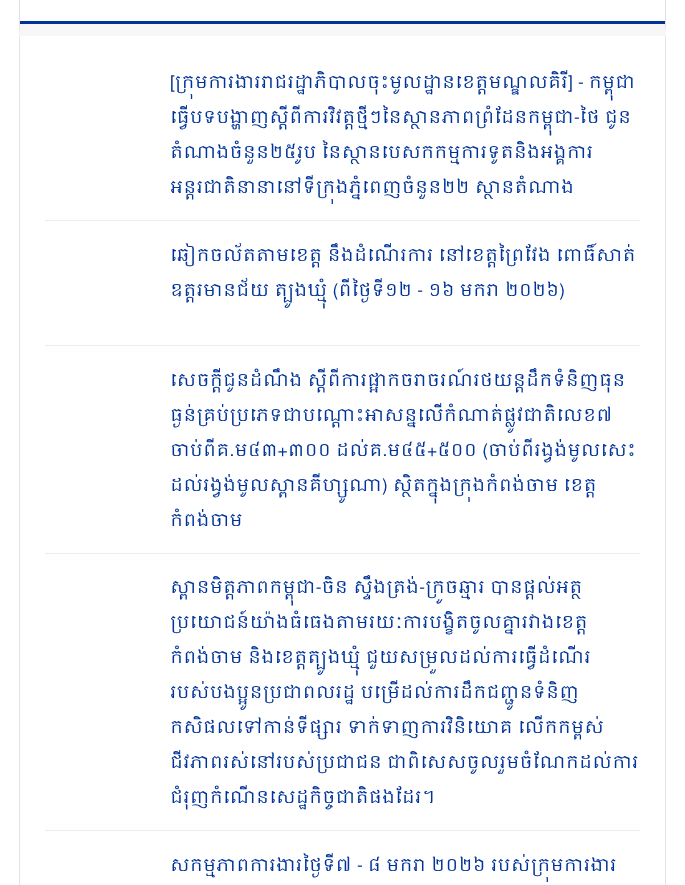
<!DOCTYPE html>
<meta charset="utf-8">
<style>body { margin: 0 } canvas { display: block }</style>
<canvas id="canvas" width="685" height="885"></canvas>
<script type="module">
  const canvas = document.getElementById("canvas");
  const g = canvas.getContext("2d");
  g.miterLimit = 4;
  g.fontKerning = "normal";
  function drawText(s, x, y, [font, color]) {
    g.font = font;
    g.fillStyle = color;
    g.fillText(s, x, y);
  }
  function fillBox(x, y, w, h, color) {
    g.fillStyle = color;
    g.fillRect(x, y, w, h);
  }

  const s1 = ["17.5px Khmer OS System", "#003399"];

  fillBox(0, 0, 685, 885, "#FFFFFF");
  g.fillStyle = "#E0E0E0";
  g.beginPath();
  g.moveTo(666, -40);
  g.lineTo(666, 36);
  g.lineTo(665, 24);
  g.lineTo(665, -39);
  g.closePath();
  g.fill();
  g.fillStyle = "#F7F7F7";
  g.beginPath();
  g.moveTo(666, 36);
  g.lineTo(19, 36);
  g.lineTo(20, 24);
  g.lineTo(665, 24);
  g.closePath();
  g.fill();
  g.fillStyle = "#E0E0E0";
  g.beginPath();
  g.moveTo(19, 36);
  g.lineTo(19, -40);
  g.lineTo(20, -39);
  g.lineTo(20, 24);
  g.closePath();
  g.fill();
  fillBox(20, 21, 645, 3, "#003399");
  fillBox(665, 36, 1, 849, "#E4E4E4");
  fillBox(19, 36, 1, 849, "#E4E4E4");
  fillBox(45, 220, 595, 1, "#ECECEC");
  drawText("[ក្រុមការងាររាជរដ្ឋាភិបាលចុះមូលដ្ឋានខេត្តមណ្ឌលគិរី] - កម្ពុជា", 170, 88, s1);
  drawText("ធ្វើបទបង្ហាញស្តីពីការវិវត្តថ្មីៗនៃស្ថានភាពព្រំដែនកម្ពុជា-ថៃ ជូន", 170, 123, s1);
  drawText("តំណាងចំនួន២៥រូប នៃស្ថានបេសកកម្មការទូតនិងអង្គការ", 170, 158, s1);
  drawText("អន្តរជាតិនានានៅទីក្រុងភ្នំពេញចំនួន២២ ស្ថានតំណាង", 170, 193, s1);
  fillBox(45, 345, 595, 1, "#ECECEC");
  drawText("ឆៀកចល័តតាមខេត្ត នឹងដំណើរការ នៅខេត្តព្រៃវែង ពោធិ៍សាត់", 170, 261, s1);
  drawText("ឧត្តរមានជ័យ ត្បូងឃ្មុំ (ពីថ្ងៃទី១២ - ១៦ មករា ២០២៦)", 170, 296, s1);
  fillBox(45, 553, 595, 1, "#ECECEC");
  drawText("សេចក្តីជូនដំណឹង ស្តីពីការផ្អាកចរាចរណ៍រថយន្តដឹកទំនិញធុន", 170, 386, s1);
  drawText("ធ្ងន់គ្រប់ប្រភេទជាបណ្តោះអាសន្នលើកំណាត់ផ្លូវជាតិលេខ៧", 170, 421, s1);
  drawText("ចាប់ពីគ.ម៤៣+៣០០ ដល់គ.ម៤៥+៥០០ (ចាប់ពីរង្វង់មូលសេះ", 170, 456, s1);
  drawText("ដល់រង្វង់មូលស្ពានគីហ្សូណា) ស្ថិតក្នុងក្រុងកំពង់ចាម ខេត្ត", 170, 491, s1);
  drawText("កំពង់ចាម", 170, 526, s1);
  fillBox(45, 830, 595, 1, "#ECECEC");
  drawText("ស្ពានមិត្តភាពកម្ពុជា-ចិន ស្ទឹងត្រង់-ក្រូចឆ្មារ បានផ្តល់អត្ថ", 170, 593, s1);
  drawText("ប្រយោជន៍យ៉ាងធំធេងតាមរយៈការបង្ខិតចូលគ្នារវាងខេត្ត", 170, 628, s1);
  drawText("កំពង់ចាម និងខេត្តត្បូងឃ្មុំ ជួយសម្រួលដល់ការធ្វើដំណើរ", 170, 663, s1);
  drawText("របស់បងប្អូនប្រជាពលរដ្ឋ បម្រើដល់ការដឹកជញ្ជូនទំនិញ", 170, 698, s1);
  drawText("កសិផលទៅកាន់ទីផ្សារ ទាក់ទាញការវិនិយោគ លើកកម្ពស់", 170, 733, s1);
  drawText("ជីវភាពរស់នៅរបស់ប្រជាជន ជាពិសេសចូលរួមចំណែកដល់ការ", 170, 768, s1);
  drawText("ជំរុញកំណើនសេដ្ឋកិច្ចជាតិផងដែរ។", 170, 803, s1);
  drawText("សកម្មភាពការងារថ្ងៃទី៧ - ៨ មករា ២០២៦ របស់ក្រុមការងារ", 170, 871, s1);
</script>
